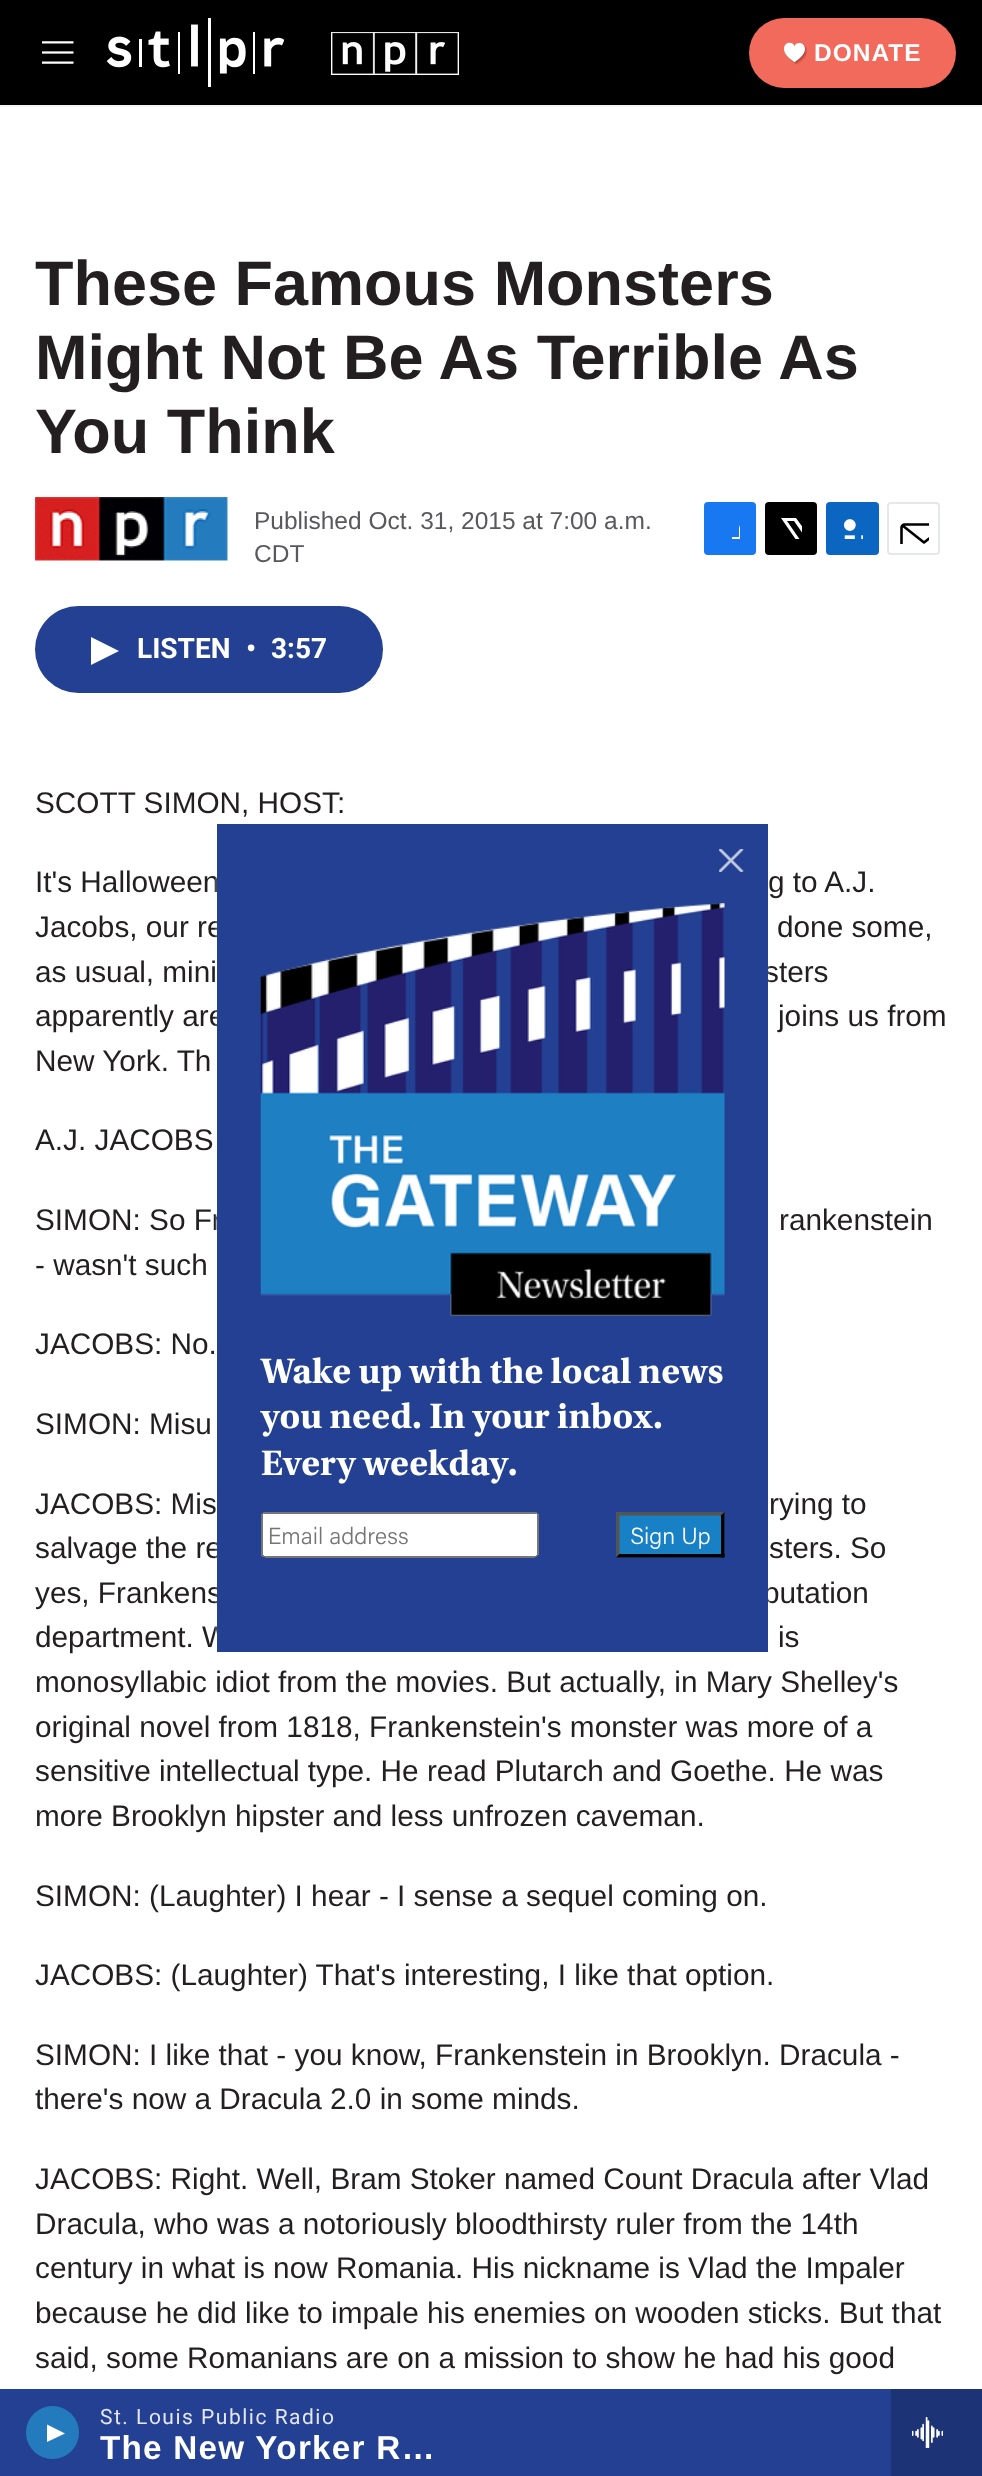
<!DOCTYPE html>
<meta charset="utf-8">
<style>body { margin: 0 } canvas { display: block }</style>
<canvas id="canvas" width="982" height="2476"></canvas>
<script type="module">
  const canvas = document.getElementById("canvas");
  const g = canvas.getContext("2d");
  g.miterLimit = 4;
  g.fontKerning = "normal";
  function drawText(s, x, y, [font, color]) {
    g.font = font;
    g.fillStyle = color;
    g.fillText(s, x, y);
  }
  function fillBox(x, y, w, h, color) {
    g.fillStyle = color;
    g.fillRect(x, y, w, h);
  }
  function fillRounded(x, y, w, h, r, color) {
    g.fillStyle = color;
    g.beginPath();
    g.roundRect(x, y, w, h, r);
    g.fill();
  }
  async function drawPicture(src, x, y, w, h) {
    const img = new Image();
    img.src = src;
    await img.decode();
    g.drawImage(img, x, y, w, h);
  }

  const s1 = ["bold 24.5px Liberation Sans", "#FFFFFF"];
  const s2 = ["21px Roboto", "#E4E7F2"];
  const s3 = ["bold 33.25px Liberation Sans", "#FFFFFF"];
  const s4 = ["bold 63px Liberation Sans", "#231F20"];
  const s5 = ["24.5px Liberation Sans", "#59585D"];
  const s6 = ["bold 28px Roboto", "#FFFFFF"];
  const s7 = ["29.75px Liberation Sans", "#231F20"];

  fillBox(0, 0, 982, 2476, "#FFFFFF");
  fillBox(0, 0, 982, 105, "#000000");
  fillBox(0, 105, 982, 2, "#F5F5F5");
  await drawPicture("pic1.png", 42, 41, 32, 23);
  await drawPicture("pic2.png", 107, 18, 177, 69);
  await drawPicture("pic3.png", 331, 32, 128, 43);
  fillRounded(749, 18, 207, 70, 35, "#F26A5B");
  await drawPicture("pic4.png", 784, 42, 23, 23);
  g.letterSpacing = "1px";
  drawText("DONATE", 814, 61, s1);
  fillBox(0, 2389, 891, 87, "#234093");
  g.fillStyle = "#237BBD";
  g.beginPath();
  g.arc(52.5, 2432.5, 26.5, 0, Math.PI * 2);
  g.fill();
  g.fillStyle = "#FFFFFF";
  g.beginPath();
  g.moveTo(47, 2424.5);
  g.lineTo(65, 2433.5);
  g.lineTo(47, 2442);
  g.closePath();
  g.fill();
  g.letterSpacing = "1.5px";
  drawText("St. Louis Public Radio", 100, 2424, s2);
  g.letterSpacing = "1.25px";
  drawText("The New Yorker R…", 100, 2459, s3);
  fillBox(891, 2389, 91, 87, "#1C3376");
  await drawPicture("pic5.png", 912, 2417, 31, 31);
  g.letterSpacing = "0px";
  drawText("These Famous Monsters", 35, 305, s4);
  drawText("Might Not Be As Terrible As", 35, 379, s4);
  drawText("You Think", 35, 453, s4);
  await drawPicture("pic6.png", 35, 497, 193, 65);
  drawText("Published Oct. 31, 2015 at 7:00 a.m.", 254, 529, s5);
  drawText("CDT", 254, 562, s5);
  fillRounded(704, 502, 52, 53, 4, "#1778F2");
  g.save();
  g.beginPath();
  g.rect(719, 518, 21, 21);
  g.clip();
  g.fillStyle = "#FFFFFF";
  g.beginPath();
  g.moveTo(748, 555);
  g.lineTo(739, 555);
  g.lineTo(739, 546);
  g.lineTo(732, 546);
  g.lineTo(732, 537);
  g.lineTo(739, 537);
  g.lineTo(739, 528);
  g.bezierCurveTo(741, 519.5, 749, 518, 756, 519);
  g.lineTo(756, 527);
  g.bezierCurveTo(746.5, 527, 748, 529.5, 748, 537);
  g.lineTo(756, 537);
  g.lineTo(756, 541.5);
  g.lineTo(755, 546);
  g.lineTo(748, 546);
  g.closePath();
  g.fill();
  g.restore();
  fillRounded(765, 502, 52, 53, 4, "#000000");
  g.save();
  g.beginPath();
  g.rect(781, 518, 21, 21);
  g.clip();
  g.fillStyle = "#FFFFFF";
  g.beginPath();
  g.moveTo(812, 540);
  g.lineTo(817, 547.5);
  g.bezierCurveTo(817, 549.5, 817.5, 551.5, 816.5, 553);
  g.lineTo(794, 521);
  g.lineTo(787, 521);
  g.lineTo(810.5, 555);
  g.lineTo(806.5, 555);
  g.lineTo(803, 550);
  g.lineTo(799, 555);
  g.lineTo(794, 555);
  g.lineTo(801, 547);
  g.lineTo(781, 518);
  g.lineTo(796, 518);
  g.lineTo(810, 537);
  g.lineTo(817, 528.5);
  g.lineTo(817, 534);
  g.closePath();
  g.fill();
  g.restore();
  fillRounded(826, 502, 53, 53, 4, "#0A66C1");
  await drawPicture("pic7.png", 844, 519, 19, 20);
  g.beginPath();
  g.roundRect(888, 503, 51, 51, 3);
  g.strokeStyle = "#E6E7E8";
  g.lineWidth = 2;
  g.stroke();
  g.save();
  g.beginPath();
  g.rect(898, 513, 31, 31);
  g.clip();
  g.beginPath();
  g.moveTo(946.5, 551);
  g.bezierCurveTo(946.5, 553, 945, 554.5, 943.5, 554.5);
  g.lineTo(904.5, 554.5);
  g.bezierCurveTo(903, 554.5, 901.5, 553, 901.5, 551);
  g.lineTo(901.5, 527.5);
  g.bezierCurveTo(901.5, 526, 903, 524.5, 904.5, 524.5);
  g.lineTo(943.5, 524.5);
  g.bezierCurveTo(945, 524.5, 946.5, 526, 946.5, 527.5);
  g.closePath();
  g.moveTo(945.5, 525.5);
  g.lineTo(924, 542.5);
  g.lineTo(902.5, 525.5);
  g.strokeStyle = "#000000";
  g.lineWidth = 2.6;
  g.lineCap = "round";
  g.lineJoin = "round";
  g.stroke();
  g.restore();
  fillRounded(35, 606, 348, 87, 43.5, "#234093");
  g.fillStyle = "#FFFFFF";
  g.beginPath();
  g.moveTo(91, 637);
  g.lineTo(119, 651);
  g.lineTo(91, 665);
  g.closePath();
  g.fill();
  drawText("LISTEN", 137, 658, s6);
  drawText("•", 246, 658, s6);
  drawText("3:57", 271, 658, s6);
  drawText("SCOTT SIMON, HOST:", 35, 813, s7);
  drawText("It's Halloween", 35, 892, s7);
  drawText("g to A.J.", 768, 892, s7);
  drawText("Jacobs, our re", 35, 937, s7);
  drawText("done some,", 777, 937, s7);
  drawText("as usual, mini", 35, 982, s7);
  drawText("sters", 764, 982, s7);
  drawText("apparently are", 35, 1026, s7);
  drawText("joins us from", 778, 1026, s7);
  drawText("New York. Th", 35, 1071, s7);
  drawText("A.J. JACOBS", 35, 1150, s7);
  drawText("SIMON: So Fr", 35, 1230, s7);
  drawText("rankenstein", 779, 1230, s7);
  drawText("- wasn't such", 35, 1275, s7);
  drawText("JACOBS: No.", 35, 1354, s7);
  drawText("SIMON: Misu", 35, 1434, s7);
  drawText("JACOBS: Mis", 35, 1514, s7);
  drawText("rying to", 769, 1514, s7);
  drawText("salvage the re", 35, 1558, s7);
  drawText("sters. So", 769, 1558, s7);
  drawText("yes, Frankens", 35, 1603, s7);
  drawText("putation", 763, 1603, s7);
  drawText("department. W", 35, 1647, s7);
  drawText("is", 778, 1647, s7);
  drawText("monosyllabic idiot from the movies. But actually, in Mary Shelley's", 35, 1692, s7);
  drawText("original novel from 1818, Frankenstein's monster was more of a", 35, 1737, s7);
  drawText("sensitive intellectual type. He read Plutarch and Goethe. He was", 35, 1781, s7);
  drawText("more Brooklyn hipster and less unfrozen caveman.", 35, 1826, s7);
  drawText("SIMON: (Laughter) I hear - I sense a sequel coming on.", 35, 1906, s7);
  drawText("JACOBS: (Laughter) That's interesting, I like that option.", 35, 1985, s7);
  drawText("SIMON: I like that - you know, Frankenstein in Brooklyn. Dracula -", 35, 2065, s7);
  drawText("there's now a Dracula 2.0 in some minds.", 35, 2109, s7);
  drawText("JACOBS: Right. Well, Bram Stoker named Count Dracula after Vlad", 35, 2189, s7);
  drawText("Dracula, who was a notoriously bloodthirsty ruler from the 14th", 35, 2234, s7);
  drawText("century in what is now Romania. His nickname is Vlad the Impaler", 35, 2278, s7);
  drawText("because he did like to impale his enemies on wooden sticks. But that", 35, 2323, s7);
  drawText("said, some Romanians are on a mission to show he had his good", 35, 2368, s7);
  g.strokeStyle = "rgba(255, 255, 255, 0.19)";
  g.strokeRect(216, 824, 553, 829);
  fillBox(217, 824, 551, 828, "#234093");
  await drawPicture("pic8.png", 719, 849, 25, 23);
  await drawPicture("pic9.png", 260, 903, 465, 655);
</script>
